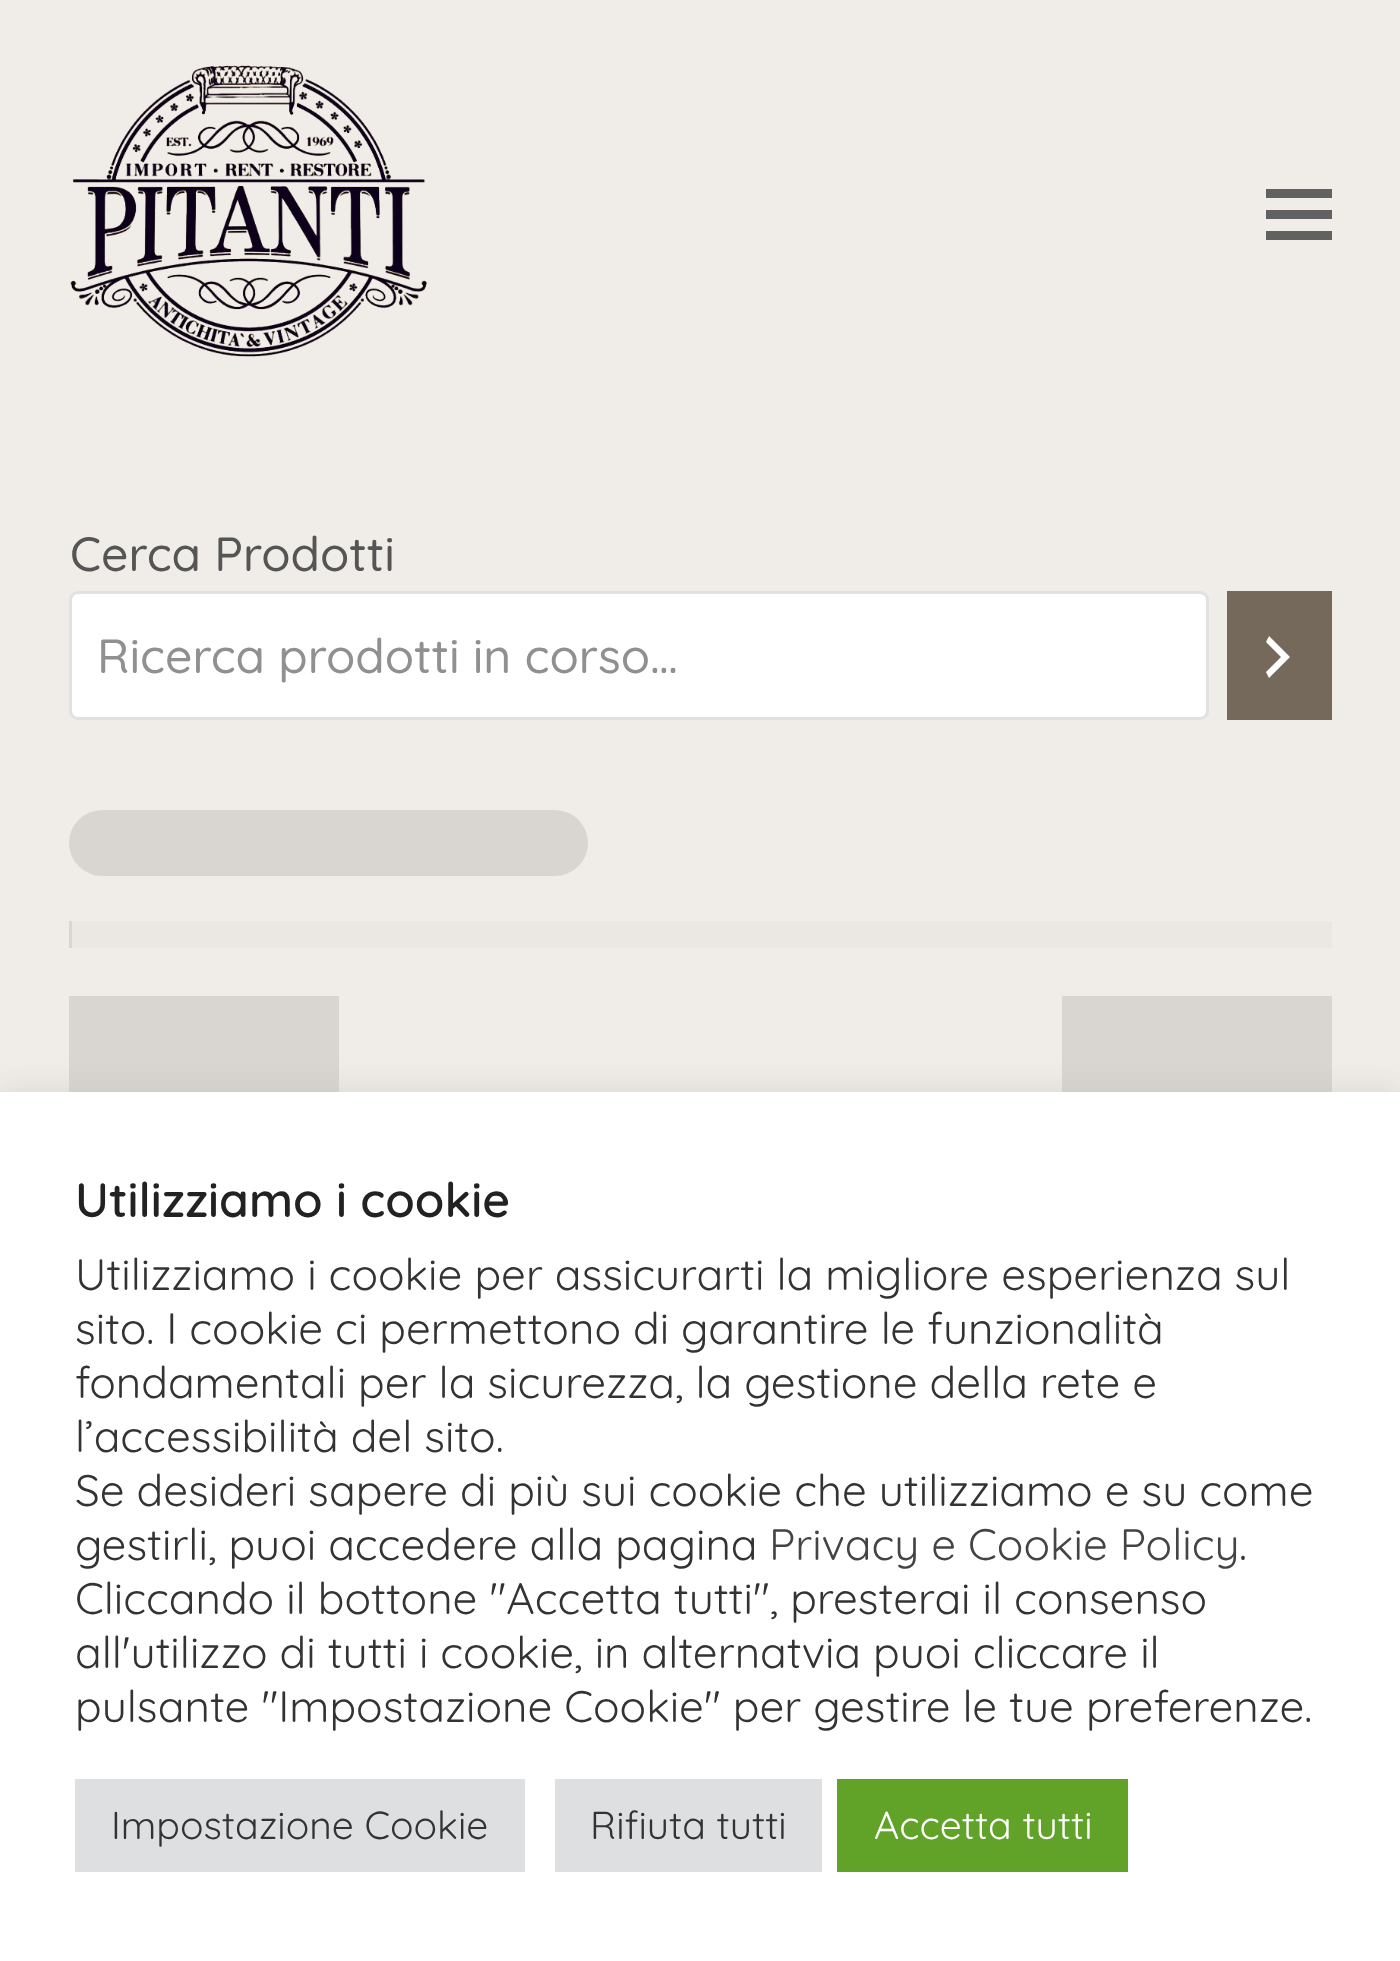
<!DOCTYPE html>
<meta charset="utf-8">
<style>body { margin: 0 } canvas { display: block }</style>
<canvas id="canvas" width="1400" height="1961"></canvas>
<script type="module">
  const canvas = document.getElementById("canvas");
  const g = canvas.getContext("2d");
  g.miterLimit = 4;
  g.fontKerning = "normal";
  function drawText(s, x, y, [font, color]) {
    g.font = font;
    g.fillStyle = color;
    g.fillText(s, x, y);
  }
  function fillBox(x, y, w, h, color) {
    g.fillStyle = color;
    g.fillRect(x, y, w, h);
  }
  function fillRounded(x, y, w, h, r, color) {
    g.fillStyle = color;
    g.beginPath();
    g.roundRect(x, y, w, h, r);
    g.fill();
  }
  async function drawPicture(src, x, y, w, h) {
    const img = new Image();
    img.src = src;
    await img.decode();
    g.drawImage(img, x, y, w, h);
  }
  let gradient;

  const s1 = ["500 48px Quicksand", "#555555"];
  const s2 = ["500 48px Quicksand", "#909090"];
  const s3 = ["600 48px Quicksand", "#222222"];
  const s4 = ["44px Quicksand", "#333333"];
  const s5 = ["44px Quicksand", "#444444"];
  const s6 = ["39px Quicksand", "#333333"];
  const s7 = ["39px Quicksand", "#FFFFFF"];

  fillBox(0, 0, 1400, 1961, "#F0EDE8");
  await drawPicture("pic1.png", 69, 65, 359, 292);
  fillBox(1266, 210, 66, 9, "#616161");
  fillBox(1266, 189, 66, 9, "#616161");
  fillBox(1266, 231, 66, 9, "#616161");
  drawText("Cerca Prodotti", 70, 571, s1);
  g.fillStyle = "#FFFFFF";
  g.beginPath();
  g.roundRect(70.5, 592.5, 1137, 126, 7.5);
  g.fill();
  g.strokeStyle = "#E1E1E1";
  g.lineWidth = 3;
  g.stroke();
  drawText("Ricerca prodotti in corso…", 97, 673, s2);
  fillBox(1227, 591, 105, 129, "#74695A");
  g.fillStyle = "#FFFFFF";
  g.beginPath();
  g.moveTo(1266, 672);
  g.lineTo(1281, 657);
  g.lineTo(1266, 642);
  g.lineTo(1269, 636);
  g.lineTo(1290, 657);
  g.lineTo(1269, 678);
  g.closePath();
  g.fill();
  fillRounded(69, 810, 519, 66, 33, "#D9D6D2");
  gradient = g.createLinearGradient(-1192, 935, 71, 935);
  gradient.addColorStop(0, "#D9D6D2");
  gradient.addColorStop(0.5, "#EDEAE6");
  gradient.addColorStop(1, "#D9D6D2");
  g.fillStyle = gradient;
  g.fillRect(69, 921, 3, 27);
  fillBox(72, 921, 1260, 27, "#EBE8E4");
  fillBox(69, 996, 270, 96, "#D9D6D2");
  fillBox(1062, 996, 270, 96, "#D9D6D2");
  g.fillStyle = "rgba(172, 171, 171, 0.3)";
  g.filter = "blur(15px)";
  g.beginPath();
  g.rect(0, 1089, 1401, 870);
  g.fill();
  g.filter = "none";
  fillBox(0, 1092, 1400, 869, "#FFFFFF");
  drawText("Utilizziamo i cookie", 75, 1217, s3);
  drawText("Utilizziamo i cookie per assicurarti la migliore esperienza sul", 75, 1290, s4);
  drawText("sito. I cookie ci permettono di garantire le funzionalità", 75, 1344, s4);
  drawText("fondamentali per la sicurezza, la gestione della rete e", 75, 1398, s4);
  drawText("l’accessibilità del sito.", 75, 1452, s4);
  drawText("Se desideri sapere di più sui cookie che utilizziamo e su come", 75, 1506, s4);
  drawText("gestirli, puoi accedere alla pagina", 75, 1560, s4);
  drawText("Privacy e Cookie Policy", 769, 1560, s5);
  drawText(".", 1239, 1560, s4);
  drawText("Cliccando il bottone \"Accetta tutti\", presterai il consenso", 75, 1614, s4);
  drawText("all'utilizzo di tutti i cookie, in alternatvia puoi cliccare il", 75, 1668, s4);
  drawText("pulsante \"Impostazione Cookie\" per gestire le tue preferenze.", 75, 1722, s4);
  fillBox(75, 1779, 450, 93, "#DEDFE0");
  drawText("Impostazione Cookie", 111, 1839, s6);
  fillBox(555, 1779, 267, 93, "#DEDFE0");
  drawText("Rifiuta tutti", 590, 1839, s6);
  fillBox(837, 1779, 291, 93, "#61A229");
  drawText("Accetta tutti", 874, 1839, s7);
</script>
